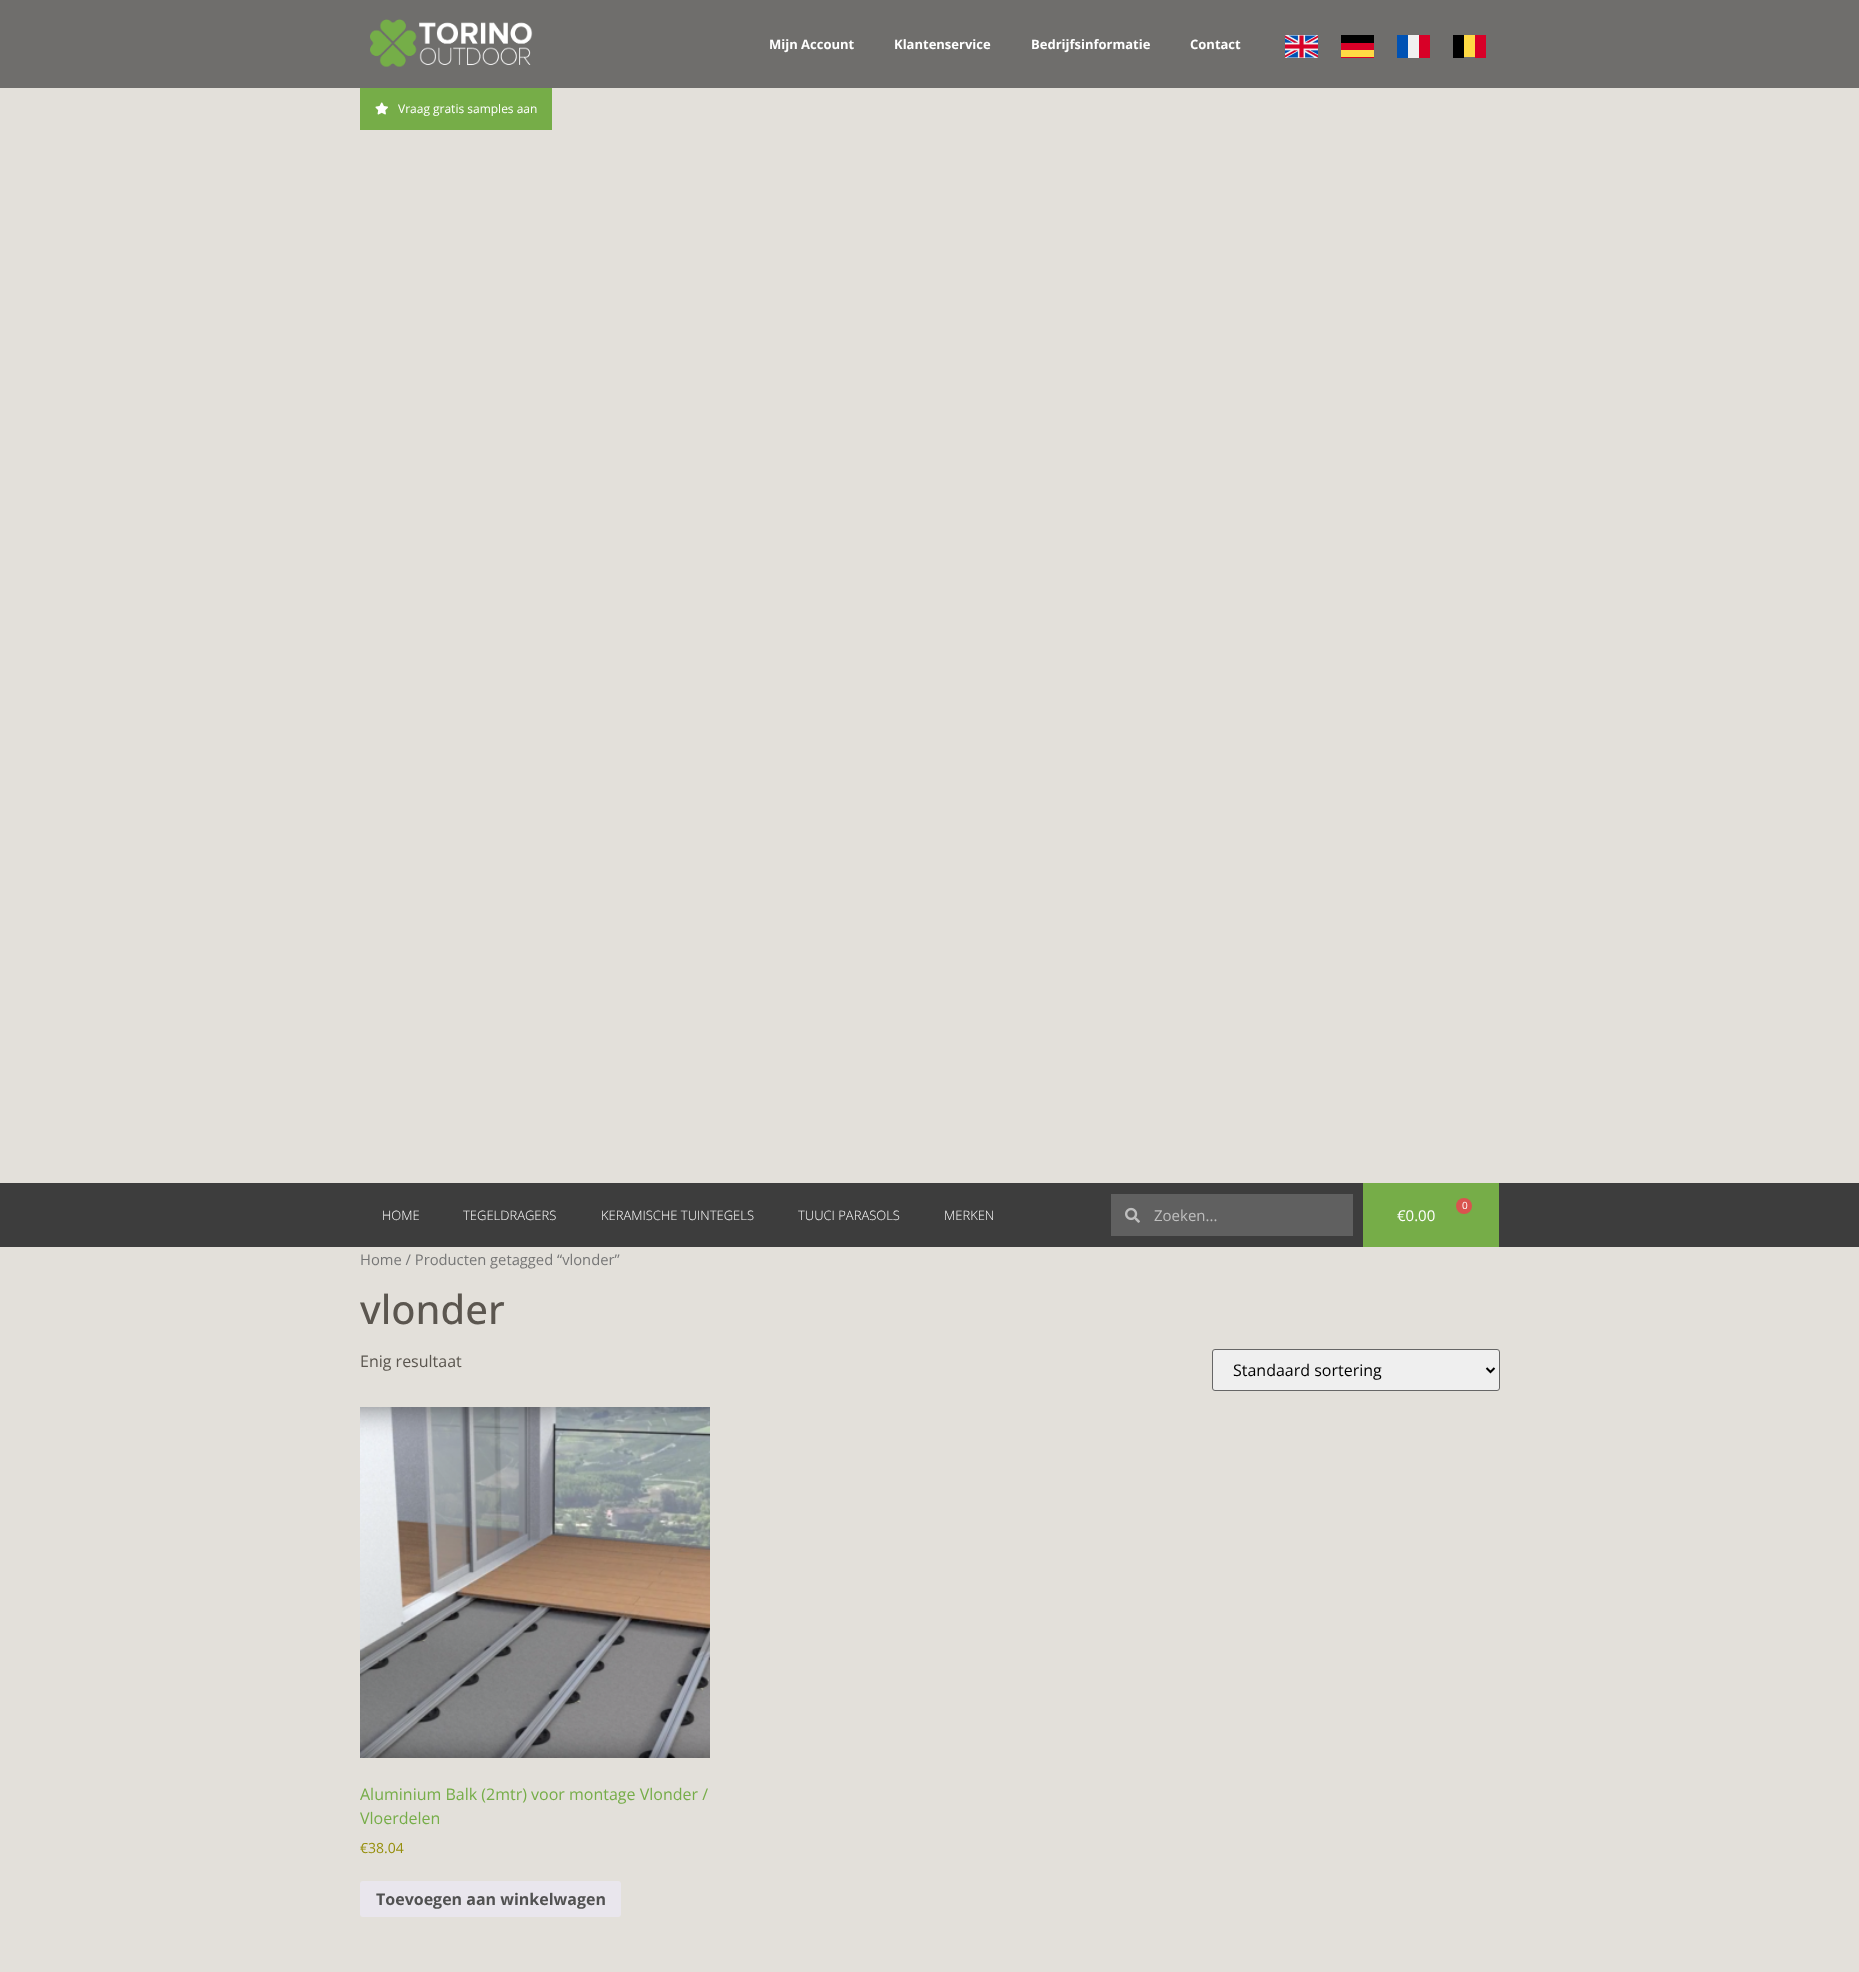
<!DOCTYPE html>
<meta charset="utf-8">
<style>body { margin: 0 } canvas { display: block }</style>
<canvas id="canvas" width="1859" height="1972"></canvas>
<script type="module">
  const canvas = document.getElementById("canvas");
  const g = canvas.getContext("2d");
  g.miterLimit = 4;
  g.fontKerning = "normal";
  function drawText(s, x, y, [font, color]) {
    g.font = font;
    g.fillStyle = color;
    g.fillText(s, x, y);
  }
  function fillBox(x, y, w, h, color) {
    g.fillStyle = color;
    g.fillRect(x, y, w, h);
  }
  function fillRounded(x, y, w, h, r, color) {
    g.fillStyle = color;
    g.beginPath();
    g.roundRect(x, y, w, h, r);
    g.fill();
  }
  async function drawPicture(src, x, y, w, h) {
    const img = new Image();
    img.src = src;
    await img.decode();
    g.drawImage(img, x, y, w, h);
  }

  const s1 = ["bold 13px Open Sans", "#FFFFFF"];
  const s2 = ["12px Open Sans", "#FFFFFF"];
  const s3 = ["300 13px Open Sans", "#FFFFFF"];
  const s4 = ["15px Open Sans", "#BFBFBF"];
  const s5 = ["10px Open Sans", "#FFFFFF"];
  const s6 = ["15px Open Sans", "#FFFFFF"];
  const s7 = ["14.75px Open Sans", "#767676"];
  const s8 = ["500 40px Open Sans", "#5B564F"];
  const s9 = ["16px Open Sans", "#5B564F"];
  const s10 = ["16px Open Sans", "#000000"];
  const s11 = ["16px Open Sans", "#76AD48"];
  const s12 = ["14px Open Sans", "#958E09"];
  const s13 = ["bold 16px Open Sans", "#515151"];

  fillBox(0, 0, 1859, 1972, "#E3E0DA");
  fillBox(0, 0, 1859, 88, "#6F6E6C");
  await drawPicture("pic1.png", 370, 19, 163, 48);
  drawText("Mijn Account", 769, 49, s1);
  drawText("Klantenservice", 894, 49, s1);
  drawText("Bedrijfsinformatie", 1031, 49, s1);
  drawText("Contact", 1190, 49, s1);
  await drawPicture("pic2.png", 1285, 35, 33, 23);
  fillBox(1341, 43, 33, 15, "#D80027");
  fillBox(1341, 35, 33, 8, "#000000");
  fillBox(1341, 50, 33, 7, "#FFDA44");
  fillBox(1408, 35, 11, 23, "#F0F0F0");
  fillBox(1397, 35, 11, 23, "#0052B4");
  fillBox(1419, 35, 11, 23, "#D80027");
  fillBox(1464, 35, 11, 22, "#FFDA44");
  fillBox(1453, 35, 11, 23, "#000000");
  fillBox(1475, 35, 11, 23, "#D80027");
  fillBox(360, 88, 192, 42, "#76AD48");
  await drawPicture("pic3.png", 375, 102, 13, 13);
  drawText("Vraag gratis samples aan", 398, 113, s2);
  fillBox(0, 1183, 1859, 64, "#3D3D3D");
  drawText("HOME", 382, 1220, s3);
  drawText("TEGELDRAGERS", 463, 1220, s3);
  drawText("KERAMISCHE TUINTEGELS", 601, 1220, s3);
  drawText("TUUCI PARASOLS", 798, 1220, s3);
  drawText("MERKEN", 944, 1220, s3);
  fillBox(1111, 1194, 242, 42, "#606060");
  await drawPicture("pic4.png", 1125, 1207, 15, 16);
  drawText("Zoeken...", 1154, 1221, s4);
  fillBox(1363, 1183, 136, 64, "#76AD48");
  g.fillStyle = "#D9534F";
  g.beginPath();
  g.arc(1464, 1206, 8, 0, Math.PI * 2);
  g.fill();
  drawText("0", 1462, 1209, s5);
  drawText("€0.00", 1397, 1221, s6);
  drawText("Home / Producten getagged “vlonder”", 360, 1265, s7);
  drawText("vlonder", 360, 1324, s8);
  drawText("Enig resultaat", 360, 1367, s9);
  g.fillStyle = "#EFEFEF";
  g.beginPath();
  g.roundRect(1212.5, 1349.5, 287, 41, 2.5);
  g.fill();
  g.strokeStyle = "#666666";
  g.stroke();
  g.beginPath();
  g.moveTo(1486.5, 1368);
  g.lineTo(1490.5, 1372);
  g.lineTo(1494.5, 1368);
  g.strokeStyle = "#000000";
  g.lineWidth = 2;
  g.stroke();
  drawText("Standaard sortering", 1233, 1376, s10);
  await drawPicture("pic5.png", 360, 1407, 350, 351);
  drawText("Aluminium Balk (2mtr) voor montage Vlonder /", 360, 1800, s11);
  drawText("Vloerdelen", 360, 1824, s11);
  drawText("€38.04", 360, 1853, s12);
  fillRounded(360, 1881, 261, 36, 3, "#E9E6ED");
  drawText("Toevoegen aan winkelwagen", 376, 1905, s13);
</script>
